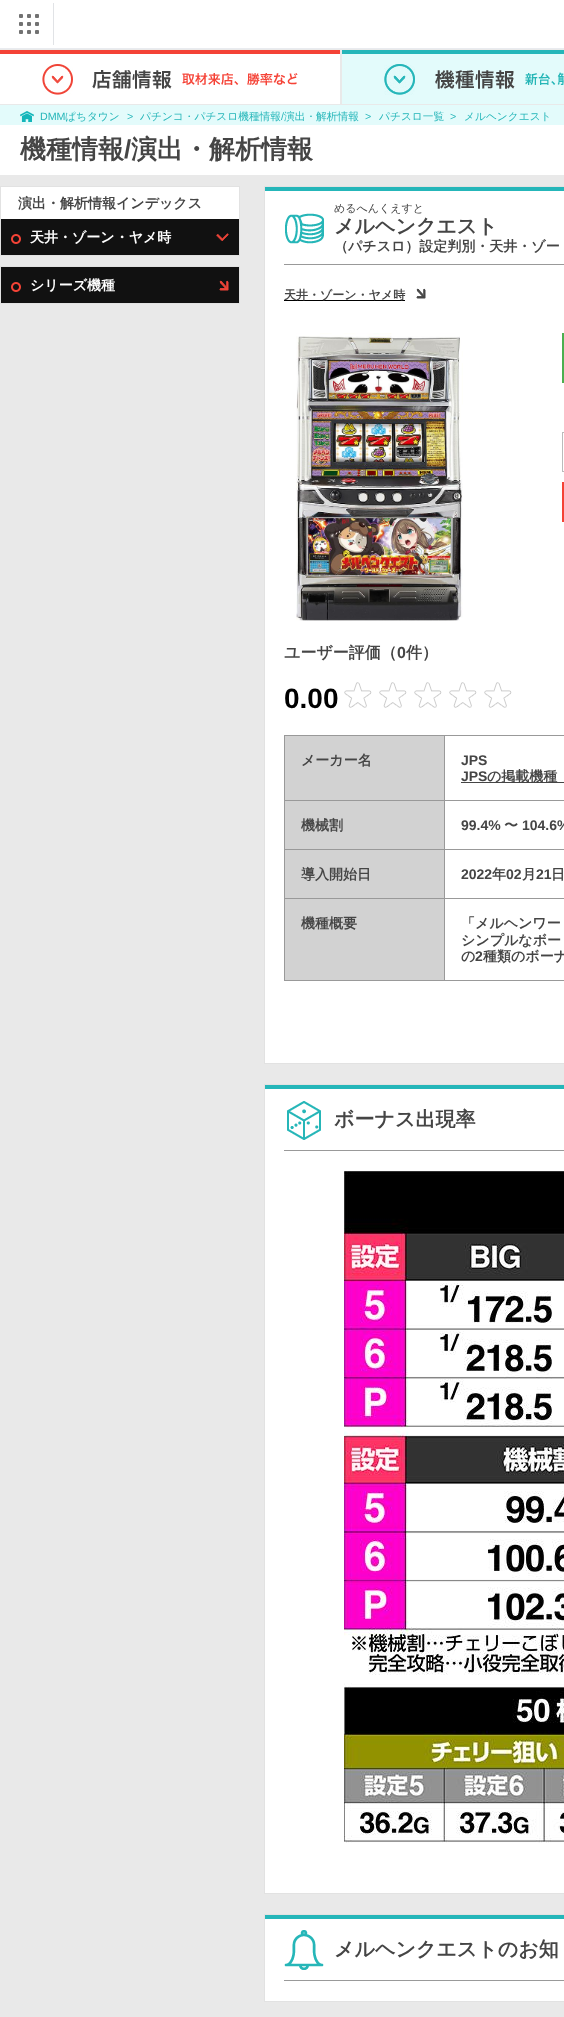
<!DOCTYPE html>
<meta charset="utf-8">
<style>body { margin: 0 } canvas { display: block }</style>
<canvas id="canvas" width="564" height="2017"></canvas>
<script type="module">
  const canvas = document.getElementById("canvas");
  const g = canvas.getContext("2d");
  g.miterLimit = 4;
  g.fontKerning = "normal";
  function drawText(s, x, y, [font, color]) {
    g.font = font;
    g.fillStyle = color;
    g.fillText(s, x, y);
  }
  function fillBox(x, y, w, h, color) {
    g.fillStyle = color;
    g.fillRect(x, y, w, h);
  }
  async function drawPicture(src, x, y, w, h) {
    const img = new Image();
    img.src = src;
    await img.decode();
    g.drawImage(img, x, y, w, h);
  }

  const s1 = ["10.7px Liberation Sans", "#25B6B9"];
  const s2 = ["500 10.7px WenQuanYi Zen Hei", "#25B6B9"];
  const s3 = ["bold 26px WenQuanYi Zen Hei", "#454545"];
  const s4 = ["bold 26px Liberation Sans", "#454545"];
  const s5 = ["bold 14px WenQuanYi Zen Hei", "#454545"];
  const s6 = ["bold 14px WenQuanYi Zen Hei", "#FFFFFF"];
  const s7 = ["500 11px WenQuanYi Zen Hei", "#454545"];
  const s8 = ["bold 20px WenQuanYi Zen Hei", "#454545"];
  const s9 = ["bold 12px WenQuanYi Zen Hei", "#454545"];
  const s10 = ["bold 16px WenQuanYi Zen Hei", "#454545"];
  const s11 = ["bold 16px Liberation Sans", "#454545"];
  const s12 = ["bold 28px Liberation Sans", "#000000"];
  const s13 = ["bold 14px Liberation Sans", "#454545"];

  fillBox(0, 0, 564, 2017, "#E9E9E9");
  fillBox(0, 0, 564, 48, "#FFFFFF");
  fillBox(0, 48, 564, 1, "#E9EBEF");
  fillBox(53, 3, 1, 42, "#E1E3E6");
  await drawPicture("pic1.png", 19, 14, 20, 20);
  await drawPicture("pic2.png", 0, 50, 340, 54);
  await drawPicture("pic3.png", 342, 50, 222, 54);
  fillBox(0, 105, 564, 20, "#E3FBFB");
  await drawPicture("pic4.png", 20, 111, 14, 11);
  drawText("DMM", 40, 120, s1);
  drawText("ぱちタウン", 65, 120, s2);
  drawText(">", 127, 120, s1);
  drawText("パチンコ・パチスロ機種情報", 140, 120, s2);
  drawText("/", 281, 120, s1);
  drawText("演出・解析情報", 284, 120, s2);
  drawText(">", 365, 120, s1);
  drawText("パチスロ一覧", 379, 120, s2);
  drawText(">", 450, 120, s1);
  drawText("メルヘンクエスト", 464, 120, s2);
  fillBox(0, 125, 564, 50, "#FFFFFF");
  drawText("機種情報", 20, 158, s3);
  drawText("/", 124, 158, s4);
  drawText("演出・解析情報", 131, 158, s3);
  g.strokeStyle = "#E2E2E2";
  g.strokeRect(0.5, 186.5, 239, 69);
  fillBox(1, 187, 238, 32, "#FFFFFF");
  drawText("演出・解析情報インデックス", 18, 208, s5);
  fillBox(1, 219, 238, 36, "#111111");
  await drawPicture("pic5.png", 11, 234, 10, 10);
  drawText("天井・ゾーン・ヤメ時", 30, 242, s6);
  await drawPicture("pic6.png", 216, 233, 13, 8);
  g.strokeRect(0.5, 266.5, 239, 37);
  fillBox(1, 267, 238, 36, "#111111");
  await drawPicture("pic5.png", 11, 282, 10, 10);
  drawText("シリーズ機種", 30, 290, s6);
  await drawPicture("pic7.png", 219, 280, 10, 11);
  fillBox(265, 191, 299, 872, "#FFFFFF");
  fillBox(265, 187, 299, 4, "#25B6B9");
  g.strokeRect(264.5, 186.5, 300, 877);
  await drawPicture("pic8.png", 285, 213, 39, 31);
  drawText("めるへんくえすと", 334, 212, s7);
  drawText("メルヘンクエスト", 334, 233, s8);
  drawText("（パチスロ）設定判別・天井・ゾー", 334, 251, s5);
  fillBox(284, 264, 280, 1, "#999999");
  fillBox(284, 300, 121, 1, "#000000");
  drawText("天井・ゾーン・ヤメ時", 284, 299, s9);
  await drawPicture("pic9.png", 416, 288, 10, 11);
  fillBox(562, 333, 2, 50, "#4BAF4F");
  g.strokeStyle = "#BBBBBB";
  g.strokeRect(562.5, 432.5, 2, 39);
  fillBox(562, 482, 2, 40, "#F44336");
  await drawPicture("pic10.png", 296, 333, 167, 288);
  drawText("ユーザー評価（", 284, 658, s10);
  drawText("0", 397, 658, s11);
  drawText("件）", 406, 658, s10);
  drawText("0.00", 284, 708, s12);
  await drawPicture("pic11.png", 344, 682, 168, 26);
  fillBox(285, 736, 159, 64, "#D2D2D2");
  fillBox(444, 735, 120, 1, "#999999");
  fillBox(444, 800, 120, 1, "#999999");
  fillBox(444, 849, 120, 1, "#999999");
  fillBox(444, 898, 120, 1, "#999999");
  fillBox(444, 980, 120, 1, "#999999");
  fillBox(444, 898, 1, 83, "#999999");
  fillBox(284, 898, 161, 1, "#999999");
  fillBox(444, 849, 1, 50, "#999999");
  fillBox(284, 849, 161, 1, "#999999");
  fillBox(444, 800, 1, 50, "#999999");
  fillBox(284, 800, 161, 1, "#999999");
  fillBox(444, 735, 1, 66, "#999999");
  fillBox(284, 735, 161, 1, "#999999");
  fillBox(284, 980, 161, 1, "#999999");
  fillBox(284, 898, 1, 83, "#999999");
  fillBox(284, 849, 1, 50, "#999999");
  fillBox(284, 800, 1, 50, "#999999");
  fillBox(284, 735, 1, 66, "#999999");
  drawText("メーカー名", 301, 765, s5);
  drawText("JPS", 461, 765, s13);
  drawText("JPS", 461, 781, s13);
  fillBox(461, 782, 103, 1, "#454545");
  drawText("の掲載機種", 487, 781, s5);
  fillBox(285, 801, 159, 48, "#D2D2D2");
  drawText("機械割", 301, 830, s5);
  drawText("99.4%", 461, 830, s13);
  drawText("〜", 504, 830, s5);
  drawText("104.6%", 522, 830, s13);
  fillBox(285, 850, 159, 48, "#D2D2D2");
  drawText("導入開始日", 301, 879, s5);
  drawText("2022", 461, 879, s13);
  drawText("年", 492, 879, s5);
  drawText("02", 506, 879, s13);
  drawText("月", 522, 879, s5);
  drawText("21", 536, 879, s13);
  drawText("日", 551, 879, s5);
  fillBox(285, 899, 159, 81, "#D2D2D2");
  drawText("機種概要", 301, 928, s5);
  drawText("「メルヘンワー", 461, 928, s5);
  drawText("シンプルなボー", 461, 945, s5);
  drawText("の", 461, 961, s5);
  drawText("2", 475, 961, s13);
  drawText("種類のボーナ", 483, 961, s5);
  fillBox(265, 1089, 299, 804, "#FFFFFF");
  fillBox(265, 1085, 299, 4, "#25B6B9");
  g.strokeStyle = "#E2E2E2";
  g.strokeRect(264.5, 1084.5, 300, 809);
  await drawPicture("pic12.png", 287, 1101, 34, 39);
  drawText("ボーナス出現率", 334, 1126, s8);
  fillBox(284, 1150, 280, 1, "#999999");
  await drawPicture("pic13.png", 344, 1171, 220, 672);
  fillBox(265, 1919, 299, 82, "#FFFFFF");
  fillBox(265, 1915, 299, 4, "#25B6B9");
  g.strokeRect(264.5, 1914.5, 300, 87);
  await drawPicture("pic14.png", 284, 1930, 40, 40);
  drawText("メルヘンクエストのお知", 334, 1956, s8);
  fillBox(284, 1980, 280, 1, "#999999");
</script>
